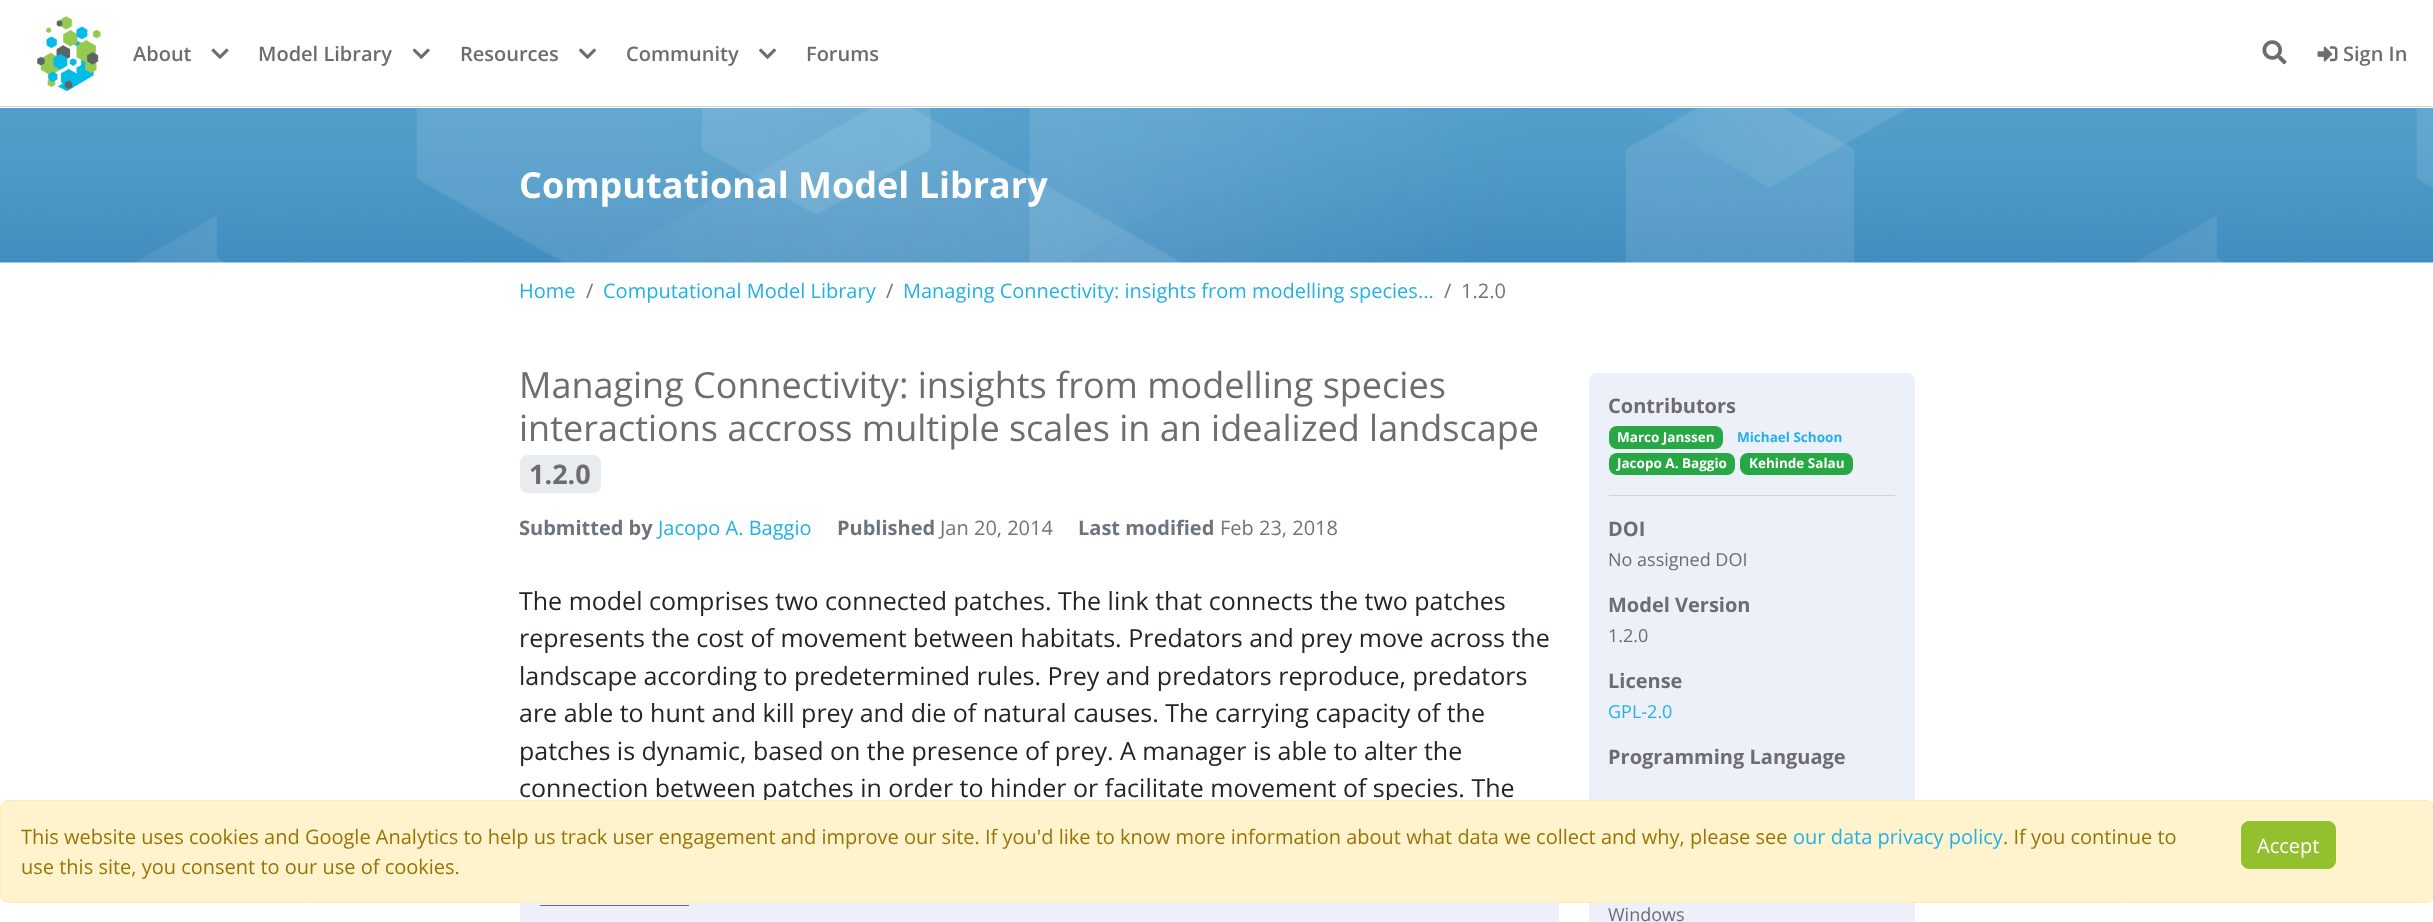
<!DOCTYPE html>
<meta charset="utf-8">
<style>body { margin: 0 } canvas { display: block }</style>
<canvas id="canvas" width="2433" height="922"></canvas>
<script type="module">
  const canvas = document.getElementById("canvas");
  const g = canvas.getContext("2d");
  g.miterLimit = 4;
  g.fontKerning = "normal";
  function drawText(s, x, y, [font, color]) {
    g.font = font;
    g.fillStyle = color;
    g.fillText(s, x, y);
  }
  function fillBox(x, y, w, h, color) {
    g.fillStyle = color;
    g.fillRect(x, y, w, h);
  }
  function fillRounded(x, y, w, h, r, color) {
    g.fillStyle = color;
    g.beginPath();
    g.roundRect(x, y, w, h, r);
    g.fill();
  }
  async function drawPicture(src, x, y, w, h) {
    const img = new Image();
    img.src = src;
    await img.decode();
    g.drawImage(img, x, y, w, h);
  }

  const s1 = ["600 20px Open Sans", "#6D6C71"];
  const s2 = ["bold 36px Open Sans", "#FFFFFF"];
  const s3 = ["20px Open Sans", "#22B1E6"];
  const s4 = ["20px Open Sans", "#6C757D"];
  const s5 = ["36px Open Sans", "#6D6C71"];
  const s6 = ["bold 27px Open Sans", "#6D6C71"];
  const s7 = ["bold 20px Open Sans", "#6C757D"];
  const s8 = ["25px Open Sans", "#212529"];
  const s9 = ["bold 20px Open Sans", "#6D6C71"];
  const s10 = ["bold 13.5px Open Sans", "#FFFFFF"];
  const s11 = ["bold 13.5px Open Sans", "#22B1E6"];
  const s12 = ["18px Open Sans", "#6D6C71"];
  const s13 = ["18px Open Sans", "#22B1E6"];
  const s14 = ["20px Open Sans", "#997404"];
  const s15 = ["20px Open Sans", "#FFFFFF"];

  fillBox(0, 0, 2433, 922, "#FFFFFF");
  fillBox(0, 106, 2433, 1, "#D2D2D2");
  await drawPicture("pic1.png", 37, 16, 64, 76);
  drawText("About", 133, 61, s1);
  await drawPicture("pic2.png", 211, 48, 18, 11);
  drawText("Model Library", 258, 61, s1);
  await drawPicture("pic3.png", 412, 48, 18, 11);
  drawText("Resources", 460, 61, s1);
  await drawPicture("pic4.png", 579, 48, 17, 11);
  drawText("Community", 626, 61, s1);
  await drawPicture("pic4.png", 759, 48, 17, 11);
  drawText("Forums", 806, 61, s1);
  await drawPicture("pic5.png", 2262, 40, 25, 25);
  await drawPicture("pic6.png", 2317, 46, 21, 16);
  drawText("Sign In", 2343, 61, s1);
  await drawPicture("pic7.png", 0, 108, 2433, 155);
  drawText("Computational Model Library", 519, 198, s2);
  drawText("Home", 519, 298, s3);
  drawText("/", 586, 298, s4);
  drawText("Computational Model Library", 603, 298, s3);
  drawText("/", 886, 298, s4);
  drawText("Managing Connectivity: insights from modelling species...", 903, 298, s3);
  drawText("/", 1444, 298, s4);
  drawText("1.2.0", 1461, 298, s4);
  drawText("Managing Connectivity: insights from modelling species", 519, 398, s5);
  drawText("interactions accross multiple scales in an idealized landscape", 519, 441, s5);
  fillRounded(520, 455, 81, 38, 8, "#E9ECEF");
  drawText("1.2.0", 529, 484, s6);
  drawText("Submitted by", 519, 535, s7);
  drawText("Jacopo A. Baggio", 658, 535, s3);
  drawText("Published", 837, 535, s7);
  drawText("Jan 20, 2014", 940, 535, s4);
  drawText("Last modified", 1078, 535, s7);
  drawText("Feb 23, 2018", 1220, 535, s4);
  drawText("The model comprises two connected patches. The link that connects the two patches", 519, 610, s8);
  drawText("represents the cost of movement between habitats. Predators and prey move across the", 519, 647, s8);
  drawText("landscape according to predetermined rules. Prey and predators reproduce, predators", 519, 685, s8);
  drawText("are able to hunt and kill prey and die of natural causes. The carrying capacity of the", 519, 722, s8);
  drawText("patches is dynamic, based on the presence of prey. A manager is able to alter the", 519, 760, s8);
  drawText("connection between patches in order to hinder or facilitate movement of species. The", 519, 797, s8);
  fillBox(520, 903, 1039, 19, "#ECF0F9");
  fillBox(540, 905, 149, 1, "#6D6C71");
  fillRounded(1589, 373, 326, 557, 8, "#ECF0F9");
  fillBox(1609, 495, 286, 1, "#CED4DA");
  drawText("Contributors", 1608, 413, s9);
  fillRounded(1609, 426, 114, 23, 8, "#28A745");
  drawText("Marco Janssen", 1617, 442, s10);
  drawText("Michael Schoon", 1737, 442, s11);
  fillRounded(1609, 453, 126, 22, 8, "#28A745");
  drawText("Jacopo A. Baggio", 1617, 468, s10);
  fillRounded(1740, 453, 113, 22, 8, "#28A745");
  drawText("Kehinde Salau", 1749, 468, s10);
  drawText("DOI", 1608, 536, s9);
  drawText("No assigned DOI", 1608, 566, s12);
  drawText("Model Version", 1608, 612, s9);
  drawText("1.2.0", 1608, 642, s12);
  drawText("License", 1608, 688, s9);
  drawText("GPL-2.0", 1608, 718, s13);
  drawText("Programming Language", 1608, 764, s9);
  drawText("Windows", 1608, 921, s12);
  g.fillStyle = "#FFF3CD";
  g.beginPath();
  g.roundRect(0.5, 800.5, 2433, 102, 7.5);
  g.fill();
  g.strokeStyle = "#FFECB5";
  g.stroke();
  drawText("This website uses cookies and Google Analytics to help us track user engagement and improve our site. If you'd like to know more information about what data we collect and why, please see", 21, 844, s14);
  drawText("our data privacy policy", 1793, 844, s3);
  drawText(". If you continue to", 2003, 844, s14);
  drawText("use this site, you consent to our use of cookies.", 21, 874, s14);
  g.fillStyle = "#92C02E";
  g.beginPath();
  g.roundRect(2241.5, 821.5, 94, 47, 7.5);
  g.fill();
  g.strokeStyle = "#92C02E";
  g.stroke();
  drawText("Accept", 2257, 853, s15);
</script>
